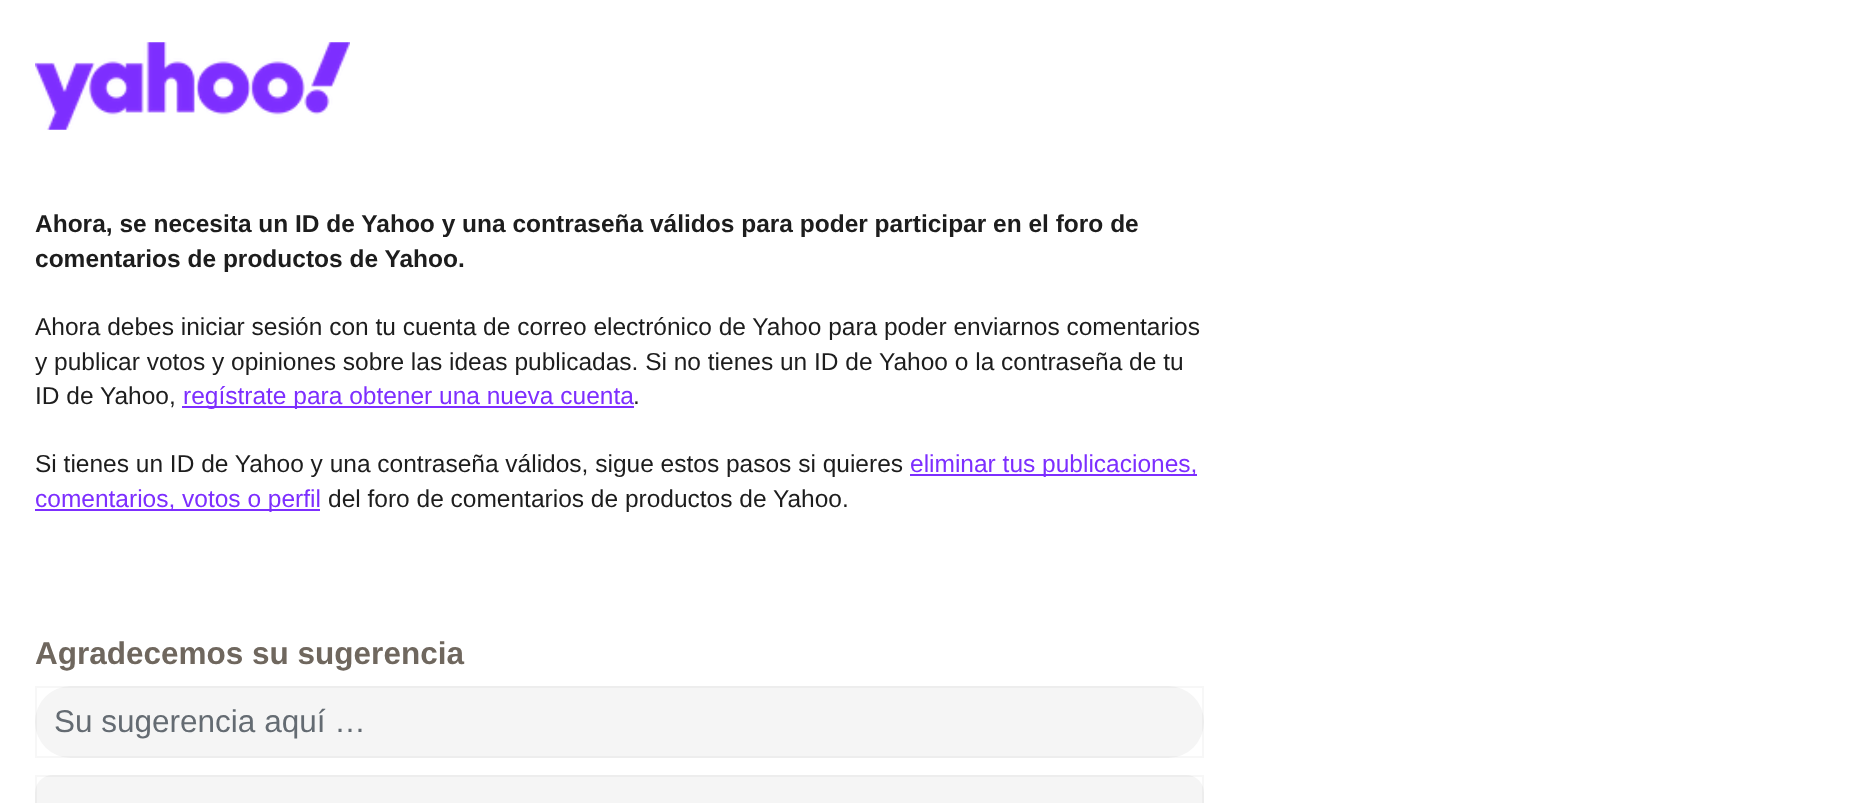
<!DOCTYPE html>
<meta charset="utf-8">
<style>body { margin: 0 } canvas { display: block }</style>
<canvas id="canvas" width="1856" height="803"></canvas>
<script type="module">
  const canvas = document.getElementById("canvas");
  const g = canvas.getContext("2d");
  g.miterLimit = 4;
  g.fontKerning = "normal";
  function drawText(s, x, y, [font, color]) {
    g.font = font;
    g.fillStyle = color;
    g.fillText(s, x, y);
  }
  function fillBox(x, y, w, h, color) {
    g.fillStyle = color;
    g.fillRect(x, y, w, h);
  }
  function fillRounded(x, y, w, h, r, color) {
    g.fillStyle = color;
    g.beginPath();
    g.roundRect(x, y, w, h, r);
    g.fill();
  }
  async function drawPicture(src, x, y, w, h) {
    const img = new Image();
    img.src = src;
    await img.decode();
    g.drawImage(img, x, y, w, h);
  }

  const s1 = ["bold 24.5px Liberation Sans", "#1D1D1D"];
  const s2 = ["24.5px Liberation Sans", "#1D1D1D"];
  const s3 = ["24.5px Liberation Sans", "#7D2EFF"];
  const s4 = ["bold 31.5px Liberation Sans", "#6F675E"];
  const s5 = ["31.5px Liberation Sans", "#646B72"];

  fillBox(0, 0, 1856, 803, "#FFFFFF");
  await drawPicture("pic1.png", 35, 42, 315, 88);
  drawText("Ahora, se necesita un ID de Yahoo y una contraseña válidos para poder participar en el foro de", 35, 232, s1);
  drawText("comentarios de productos de Yahoo.", 35, 267, s1);
  drawText("Ahora debes iniciar sesión con tu cuenta de correo electrónico de Yahoo para poder enviarnos comentarios", 35, 335, s2);
  drawText("y publicar votos y opiniones sobre las ideas publicadas. Si no tienes un ID de Yahoo o la contraseña de tu", 35, 370, s2);
  drawText("ID de Yahoo,", 35, 404, s2);
  fillBox(182, 406, 452, 2, "#7D2EFF");
  drawText("regístrate para obtener una nueva cuenta", 183, 404, s3);
  drawText(".", 633, 404, s2);
  drawText("Si tienes un ID de Yahoo y una contraseña válidos, sigue estos pasos si quieres", 35, 472, s2);
  fillBox(910, 474, 287, 2, "#7D2EFF");
  drawText("eliminar tus publicaciones,", 910, 472, s3);
  fillBox(35, 509, 285, 2, "#7D2EFF");
  drawText("comentarios, votos o perfil", 35, 507, s3);
  drawText("del foro de comentarios de productos de Yahoo.", 328, 507, s2);
  drawText("Agradecemos su sugerencia", 35, 664, s4);
  fillRounded(35, 686, 1169, 72, 36, "#F5F5F5");
  g.strokeStyle = "rgba(0, 0, 0, 0.03)";
  g.lineWidth = 2;
  g.strokeRect(36, 687, 1167, 70);
  drawText("Su sugerencia aquí …", 54, 732, s5);
  fillRounded(35, 775, 1169, 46, 18, "#F5F5F5");
  g.strokeRect(36, 776, 1167, 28);
</script>
